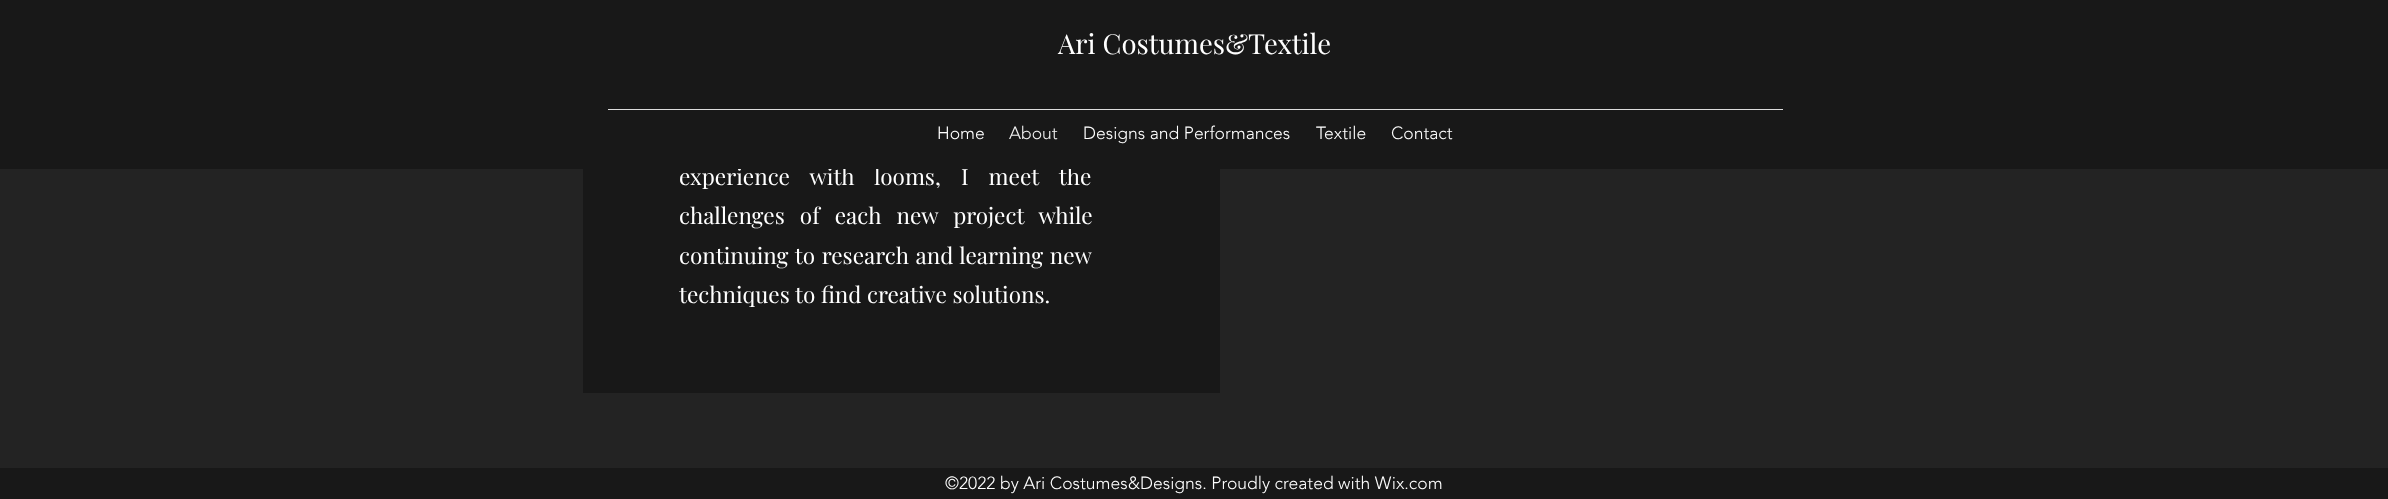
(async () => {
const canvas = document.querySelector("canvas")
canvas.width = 2388
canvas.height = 499
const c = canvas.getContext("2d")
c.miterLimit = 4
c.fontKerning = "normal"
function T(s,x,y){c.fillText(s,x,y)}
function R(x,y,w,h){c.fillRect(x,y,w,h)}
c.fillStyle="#232323"
R(0,0,2388,499)
c.fillStyle="#181818"
R(583,169,637,224)
c.wordSpacing="14.5px"
c.font="22.5px Playfair Display"
c.fillStyle="#fff"
T("experience with looms, I meet the",679,185)
c.fillStyle="#181818"
R(0,0,2388,169)
c.wordSpacing="0px"
c.font="27.5px Playfair Display"
c.fillStyle="#fff"
T("Ari Costumes&Textile",1058,54)
c.fillStyle="#dcdcdc"
R(608,109,1175,1)
c.font="300 17.5px 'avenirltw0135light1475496'"
c.fillStyle="#fff"
T("Home",937,139)
c.fillStyle="#f1f1f1"
T("About",1009,139)
c.fillStyle="#fff"
T("Designs and Performances",1083,139)
T("Textile",1316,139)
T("Contact",1391,139)
c.wordSpacing="9.5px"
c.font="22.5px Playfair Display"
T("challenges of each new project while",679,224)
c.wordSpacing="1px"
T("continuing to research and learning new",679,264)
c.wordSpacing="0px"
T("techniques to find creative solutions.",679,303)
c.fillStyle="#181818"
R(0,468,2388,31)
c.font="300 17.5px 'avenirltw0135light1475496'"
c.fillStyle="#fff"
T("©2022 by Ari Costumes&Designs. Proudly created with Wix.com",945,489)
})()
